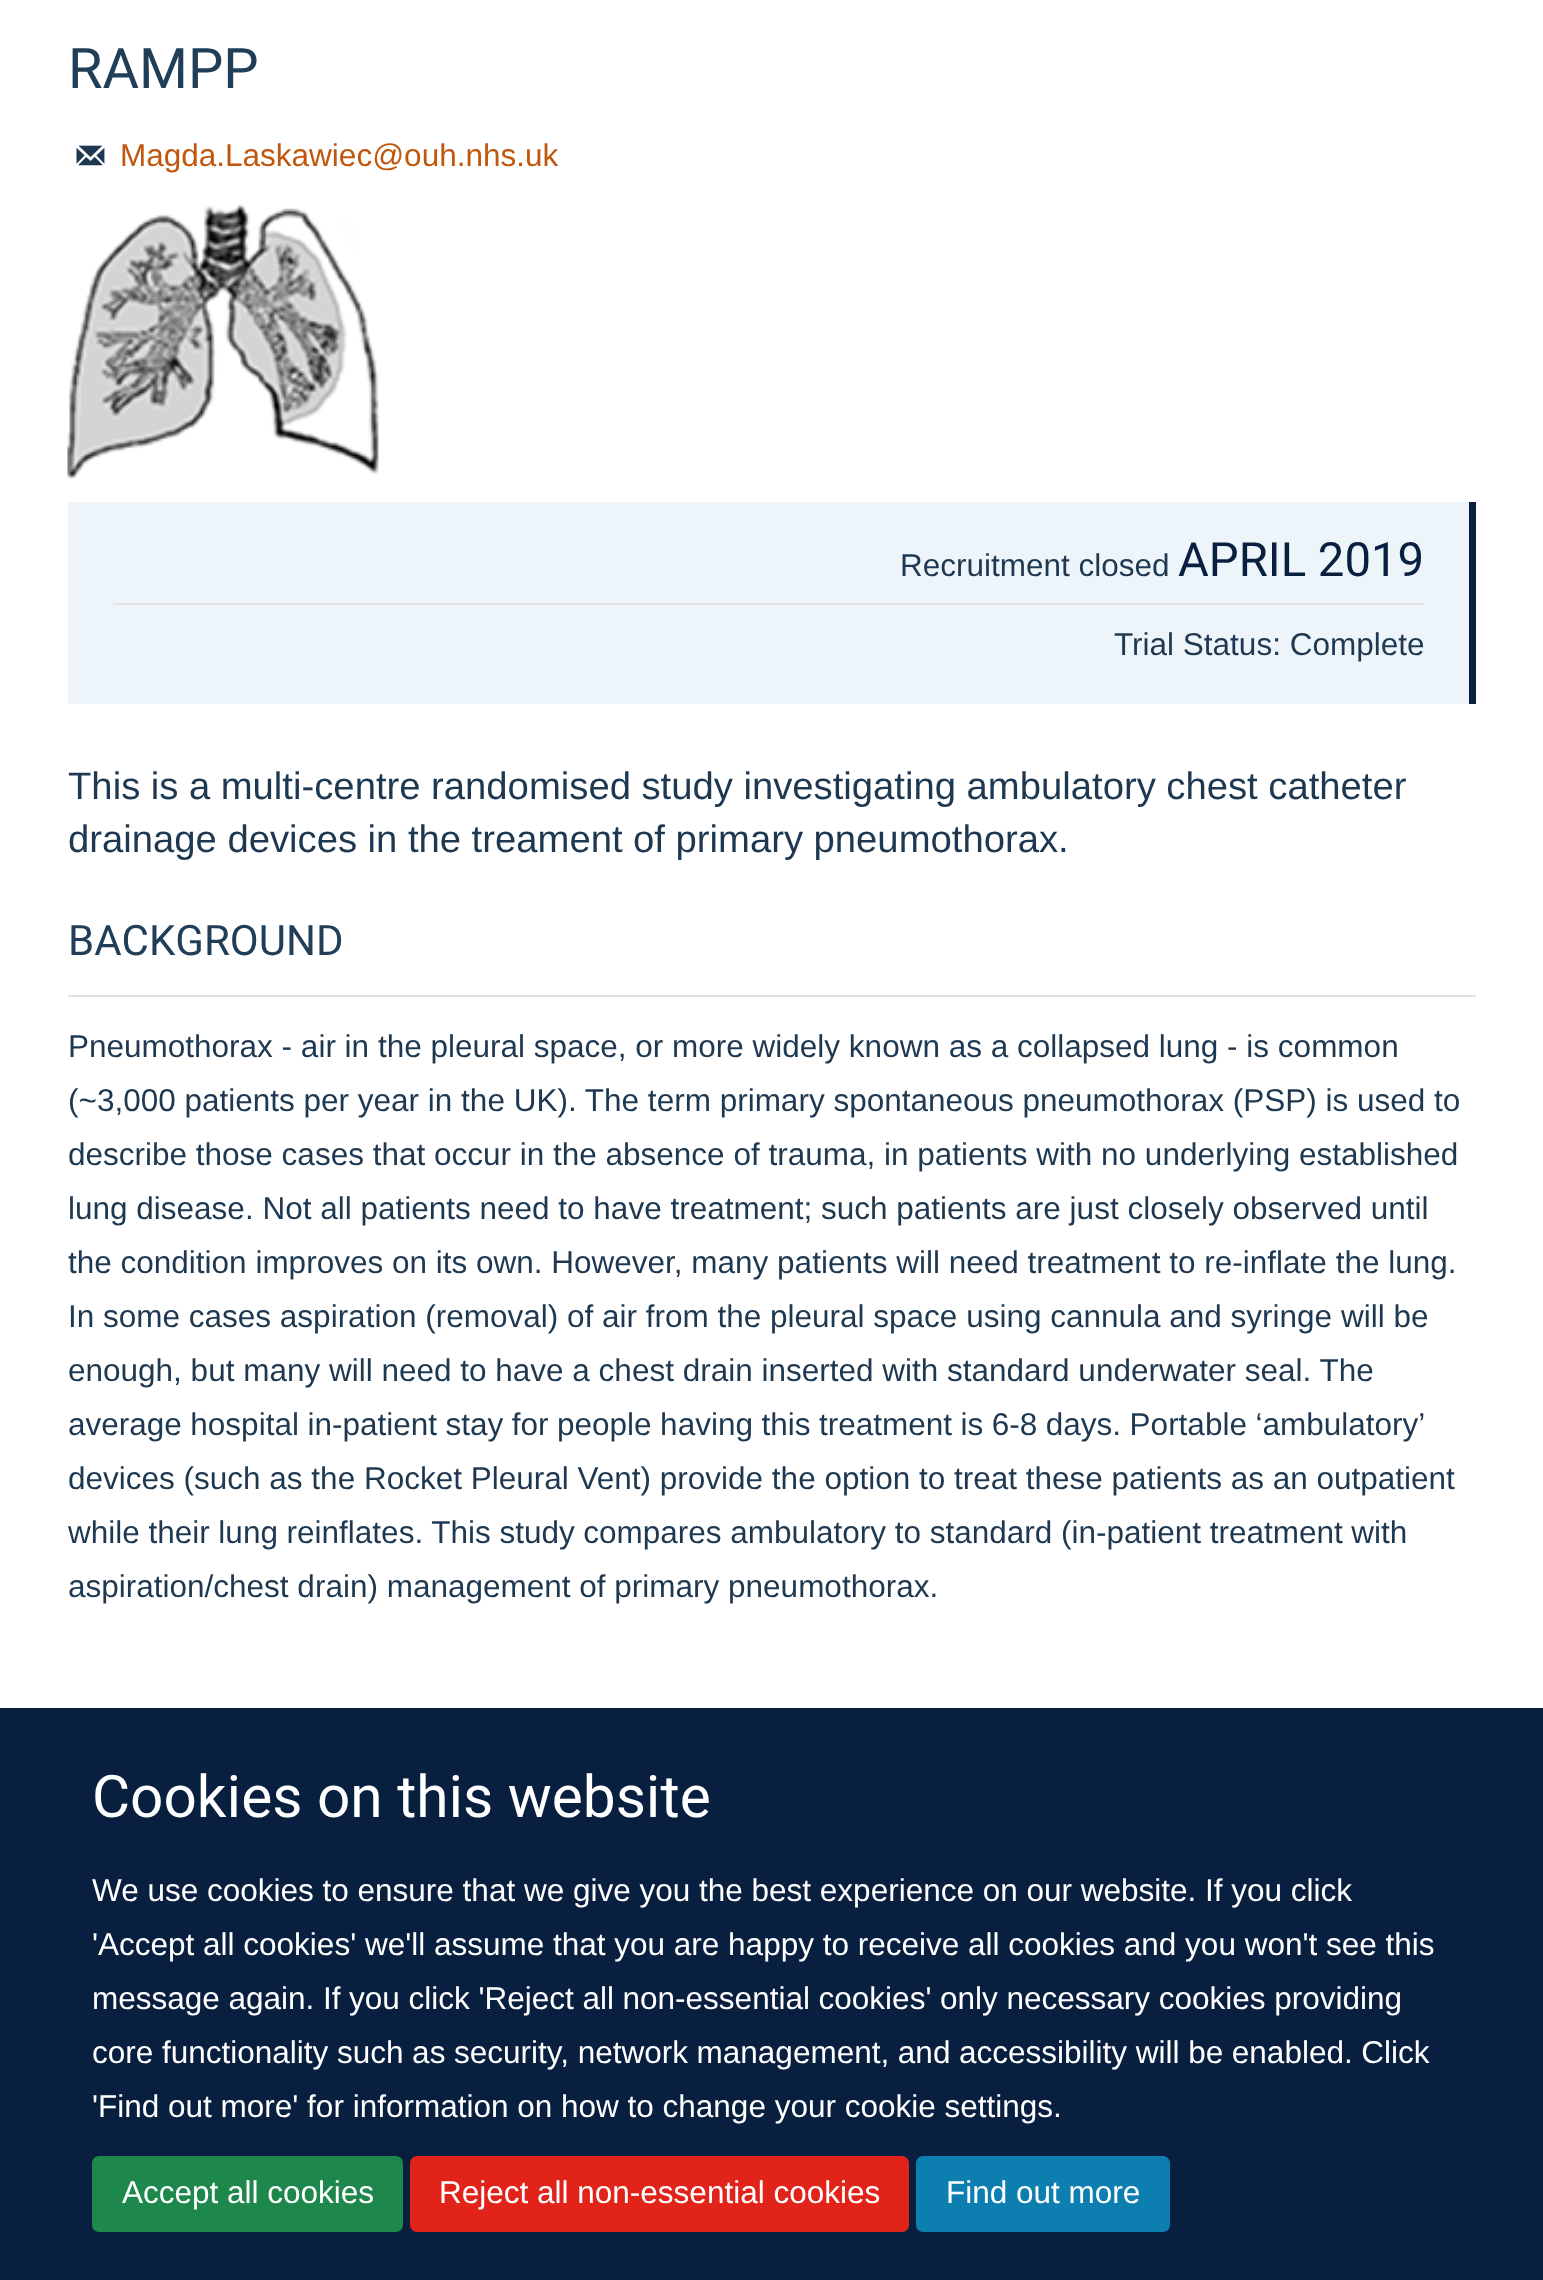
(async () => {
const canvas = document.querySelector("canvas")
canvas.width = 1543
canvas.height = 2280
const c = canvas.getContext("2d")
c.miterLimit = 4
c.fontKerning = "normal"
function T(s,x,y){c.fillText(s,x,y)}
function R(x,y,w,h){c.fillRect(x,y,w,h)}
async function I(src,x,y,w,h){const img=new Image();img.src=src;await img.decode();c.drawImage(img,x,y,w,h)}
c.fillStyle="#fff"
R(0,0,1543,2280)
c.font="56px Heebo"
c.fillStyle="#203e58"
T("RAMPP",68,88)
await I("1.png",76,145,29,21)
c.font="31.5px Liberation Sans"
c.fillStyle="#c1570e"
T("Magda.Laskawiec@ouh.nhs.uk",120,166)
await I("2.png",67,204,312,275)
c.fillStyle="#edf4fa"
R(68,502,1401,202)
c.fillStyle="#091f40"
R(1469,502,7,202)
c.fillStyle="#e2e2e2"
R(113,603,1311,2)
c.fillStyle="#1d3850"
T("Recruitment closed",900,576)
c.font="47.25px Heebo"
c.fillStyle="#091f40"
T("APRIL 2019",1178,576)
c.font="31.5px Liberation Sans"
c.fillStyle="#1d3850"
T("Trial Status: Complete",1114,655)
c.wordSpacing="-0.1px"
c.font="38.25px Liberation Sans"
T("This is a multi-centre randomised study investigating ambulatory chest catheter",68,799)
T("drainage devices in the treament of primary pneumothorax.",68,852)
c.fillStyle="#dfe1e4"
R(68,995,1408,2)
c.wordSpacing="0px"
c.font="42px Heebo"
c.fillStyle="#203e58"
T("BACKGROUND",68,955)
c.font="31.5px Liberation Sans"
c.fillStyle="#1d3850"
T("Pneumothorax - air in the pleural space, or more widely known as a collapsed lung - is common",68,1057)
T("(~3,000 patients per year in the UK). The term primary spontaneous pneumothorax (PSP) is used to",68,1111)
T("describe those cases that occur in the absence of trauma, in patients with no underlying established",68,1165)
T("lung disease. Not all patients need to have treatment; such patients are just closely observed until",68,1219)
T("the condition improves on its own. However, many patients will need treatment to re-inflate the lung.",68,1273)
T("In some cases aspiration (removal) of air from the pleural space using cannula and syringe will be",68,1327)
T("enough, but many will need to have a chest drain inserted with standard underwater seal. The",68,1381)
c.wordSpacing="-0.25px"
T("average hospital in-patient stay for people having this treatment is 6-8 days. Portable ‘ambulatory’",68,1435)
c.wordSpacing="0px"
T("devices (such as the Rocket Pleural Vent) provide the option to treat these patients as an outpatient",68,1489)
c.wordSpacing="-0.1px"
T("while their lung reinflates. This study compares ambulatory to standard (in-patient treatment with",68,1543)
c.wordSpacing="0px"
T("aspiration/chest drain) management of primary pneumothorax.",68,1597)
c.fillStyle="#091f40"
R(0,1708,1543,572)
c.font="58.5px Heebo"
c.fillStyle="#fff"
T("Cookies on this website",92,1817)
c.font="31.5px Liberation Sans"
T("We use cookies to ensure that we give you the best experience on our website. If you click",92,1901)
T("'Accept all cookies' we'll assume that you are happy to receive all cookies and you won't see this",92,1955)
c.wordSpacing="-0.1px"
T("message again. If you click 'Reject all non-essential cookies' only necessary cookies providing",92,2009)
T("core functionality such as security, network management, and accessibility will be enabled. Click",92,2063)
c.wordSpacing="0px"
T("'Find out more' for information on how to change your cookie settings.",92,2117)
c.fillStyle="#1e874b"
c.beginPath()
c.roundRect(93,2157,309,74,6)
c.fill()
c.strokeStyle="#1e874b"
c.lineWidth=2
c.stroke()
c.fillStyle="#fff"
T("Accept all cookies",122,2203)
c.fillStyle="#e2231a"
c.beginPath()
c.roundRect(411,2157,497,74,6)
c.fill()
c.strokeStyle="#e2231a"
c.stroke()
c.fillStyle="#fff"
T("Reject all non-essential cookies",439,2203)
c.fillStyle="#0d7eb0"
c.beginPath()
c.roundRect(917,2157,252,74,6)
c.fill()
c.strokeStyle="#0d7eb0"
c.stroke()
c.fillStyle="#fff"
T("Find out more",946,2203)
})()
